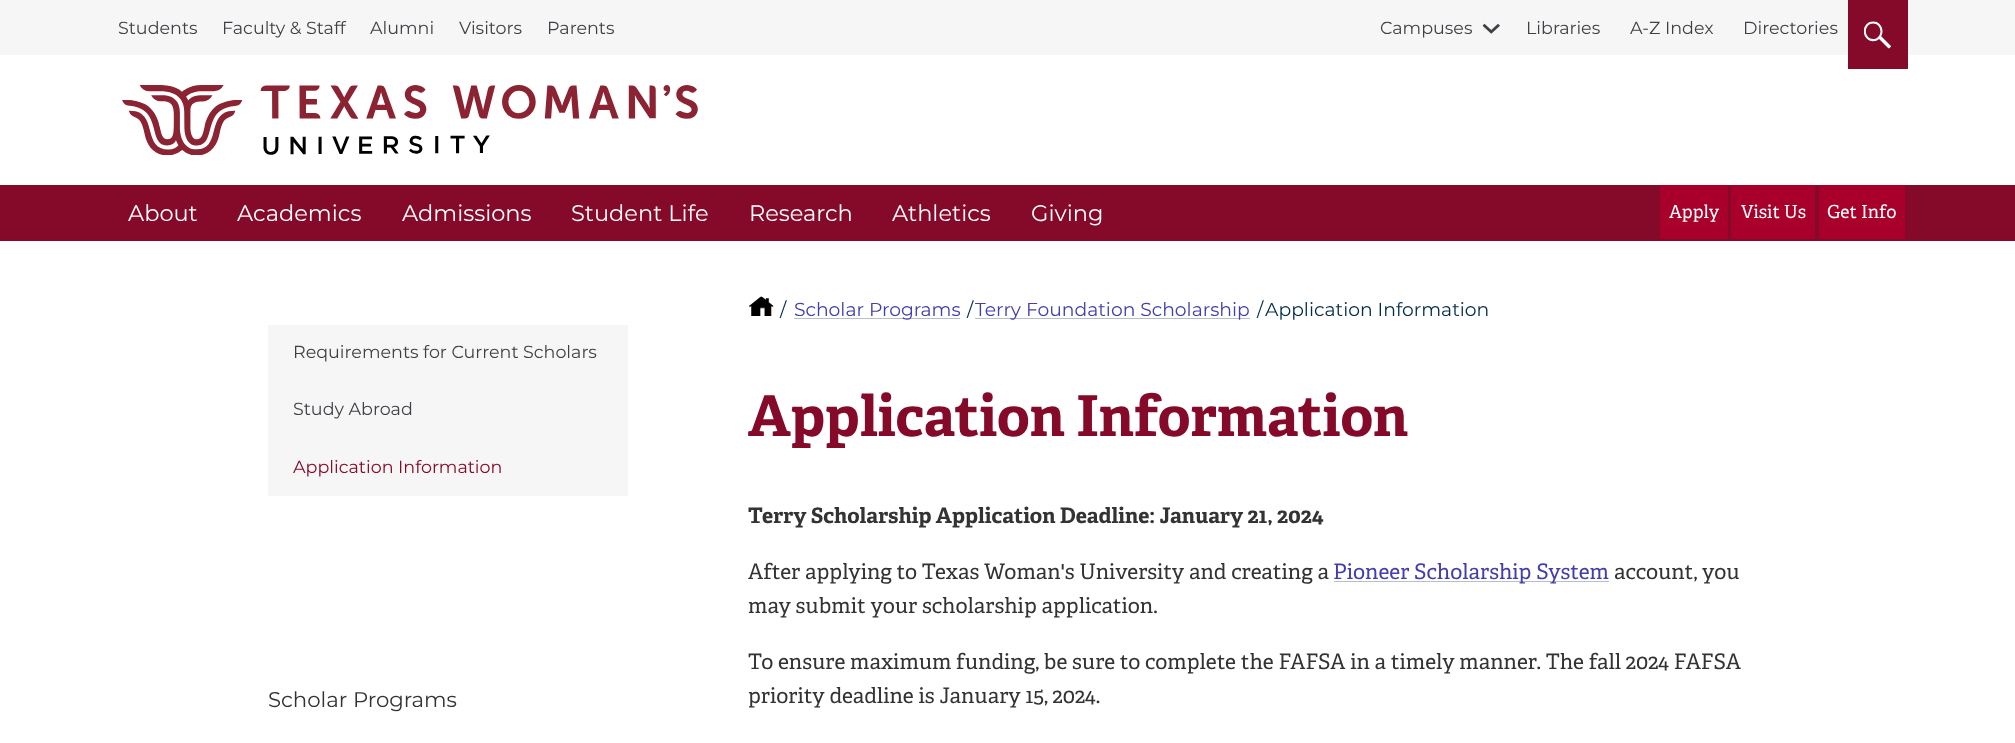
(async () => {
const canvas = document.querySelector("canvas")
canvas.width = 2015
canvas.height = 743
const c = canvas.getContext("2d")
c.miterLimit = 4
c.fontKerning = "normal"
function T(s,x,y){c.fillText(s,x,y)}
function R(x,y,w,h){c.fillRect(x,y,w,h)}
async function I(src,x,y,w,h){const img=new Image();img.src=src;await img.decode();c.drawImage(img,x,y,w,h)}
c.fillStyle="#fff"
R(0,0,2015,743)
c.fillStyle="#f6f6f6"
R(0,0,2015,55)
c.font="17.5px Montserrat"
c.fillStyle="#413f46"
T("Students",118,34)
T("Faculty & Staff",222,34)
T("Alumni",370,34)
T("Visitors",459,34)
T("Parents",547,34)
T("Campuses",1380,34)
await I("1.png",1482,23,18,11)
T("Libraries",1526,34)
T("A-Z Index",1630,34)
T("Directories",1743,34)
c.fillStyle="#850928"
R(1848,0,60,69)
await I("2.png",1864,21,27,28)
await I("3.png",122,85,576,70)
R(0,185,2015,56)
c.font="22.5px Montserrat"
c.fillStyle="#fff"
T("About",128,221)
T("Academics",237,221)
T("Admissions",402,221)
T("Student Life",571,221)
T("Research",749,221)
T("Athletics",892,221)
T("Giving",1031,221)
c.fillStyle="#a8002a"
R(1660,185,68,54)
c.font="18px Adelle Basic"
c.fillStyle="#fff"
T("Apply",1669,218)
c.fillStyle="#a8002a"
R(1731,185,84,54)
c.fillStyle="#fff"
T("Visit Us",1741,218)
c.fillStyle="#a8002a"
R(1819,185,86,54)
c.fillStyle="#fff"
T("Get Info",1827,218)
await I("4.png",749,296,25,20)
c.font="18.75px Montserrat"
c.fillStyle="#032c4c"
T("/",780,316)
c.fillStyle="#b3c0c9"
R(794,318,166,1)
c.fillStyle="#433eab"
T("Scholar Programs",794,316)
c.fillStyle="#032c4c"
T("/",967,316)
c.fillStyle="#b3c0c9"
R(975,318,275,1)
c.fillStyle="#433eab"
T("Terry Foundation Scholarship",975,316)
c.fillStyle="#032c4c"
T("/",1257,316)
T("Application Information",1265,316)
c.fillStyle="#f6f6f6"
R(268,325,360,171)
c.font="17.5px Montserrat"
c.fillStyle="#413f46"
T("Requirements for Current Scholars",293,358)
T("Study Abroad",293,415)
c.fillStyle="#850928"
T("Application Information",293,473)
c.font="bold 56.25px Adelle Basic"
T("Application Information",748,436)
c.font="bold 21.25px Adelle Basic"
c.fillStyle="#333"
T("Terry Scholarship Application Deadline: January 21, 2024",748,523)
c.font="21.25px Adelle Basic"
T("After applying to Texas Woman's University and creating a",748,579)
c.fillStyle="#b3c0c9"
R(1334,581,275,1)
c.fillStyle="#433eab"
T("Pioneer Scholarship System",1333,579)
c.fillStyle="#333"
T("account, you",1614,579)
T("may submit your scholarship application.",748,613)
T("To ensure maximum funding, be sure to complete the FAFSA in a timely manner. The fall 2024 FAFSA",748,669)
T("priority deadline is January 15, 2024.",748,703)
c.font="21.25px Montserrat"
T("Scholar Programs",268,707)
})()
